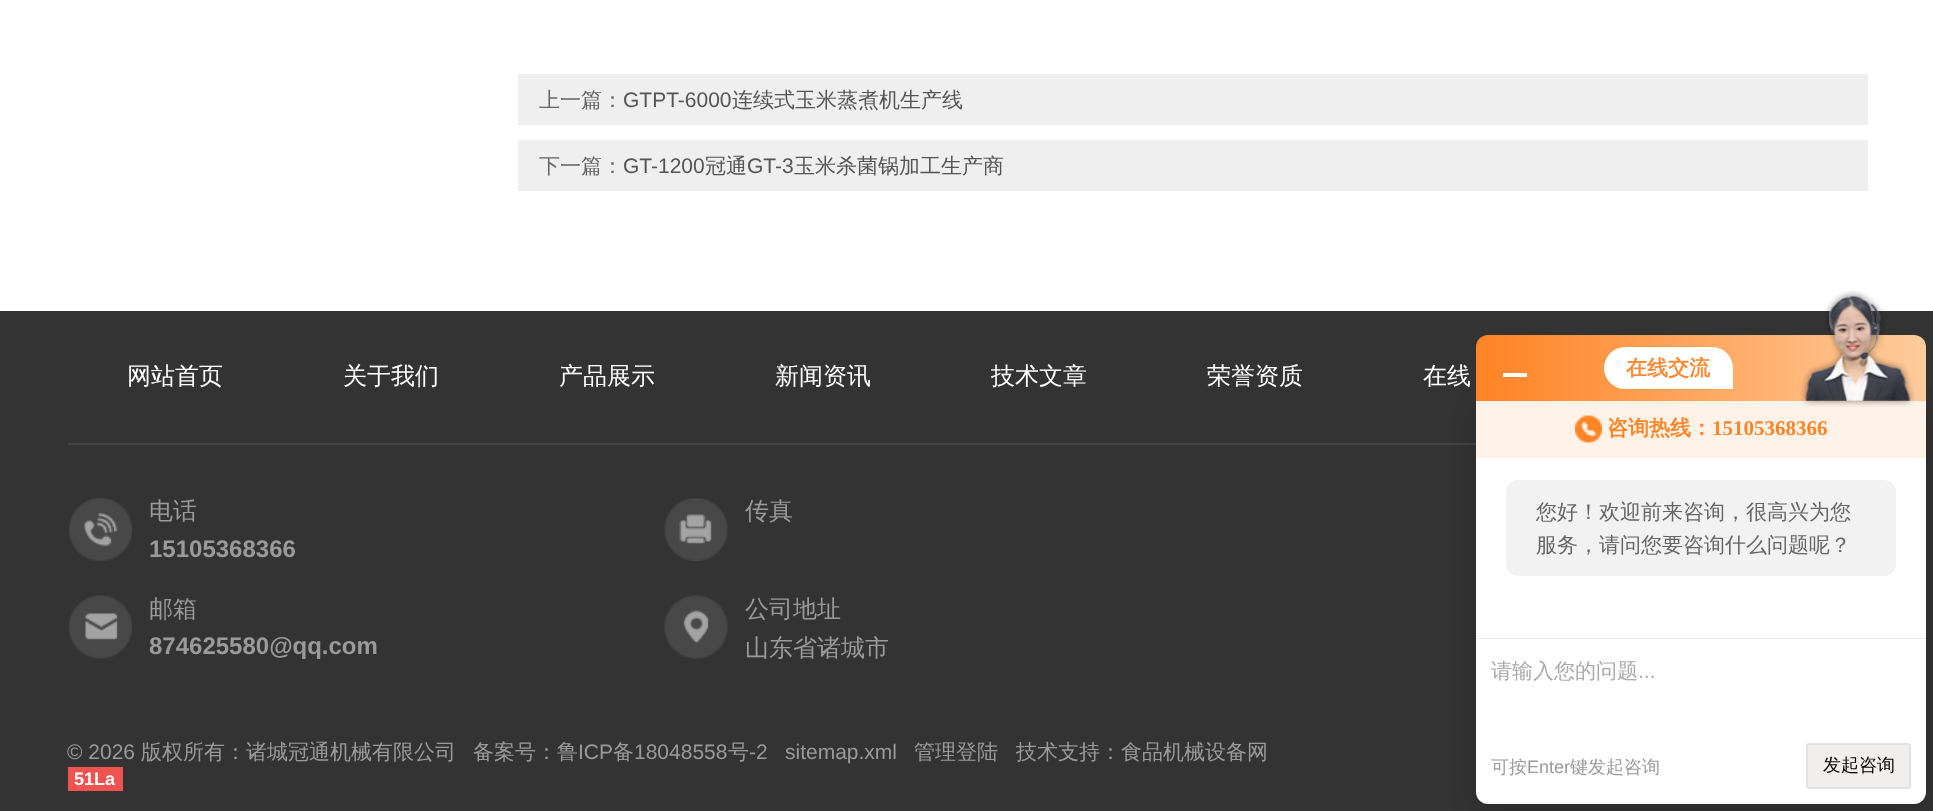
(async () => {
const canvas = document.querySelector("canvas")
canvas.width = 1933
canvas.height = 811
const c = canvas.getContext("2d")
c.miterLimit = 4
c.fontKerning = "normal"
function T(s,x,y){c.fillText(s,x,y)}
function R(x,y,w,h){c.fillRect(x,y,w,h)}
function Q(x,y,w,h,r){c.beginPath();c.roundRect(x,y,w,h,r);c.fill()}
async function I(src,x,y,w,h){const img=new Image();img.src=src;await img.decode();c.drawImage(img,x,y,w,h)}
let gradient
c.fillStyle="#fff"
R(0,0,1933,811)
c.fillStyle="#efefef"
R(518,74,1350,51)
c.font="500 21px WenQuanYi Zen Hei"
c.fillStyle="#666"
T("上一篇：",539,107)
c.font="21px Liberation Sans"
c.fillStyle="#555"
T("GTPT-6000",623,107)
c.font="500 21px WenQuanYi Zen Hei"
T("连续式玉米蒸煮机生产线",732,107)
c.fillStyle="#efefef"
R(518,140,1350,51)
c.fillStyle="#666"
T("下一篇：",539,173)
c.font="21px Liberation Sans"
c.fillStyle="#555"
T("GT-1200",623,173)
c.font="500 21px WenQuanYi Zen Hei"
T("冠通",705,173)
c.font="21px Liberation Sans"
T("GT-3",747,173)
c.font="500 21px WenQuanYi Zen Hei"
T("玉米杀菌锅加工生产商",794,173)
c.fillStyle="#333"
R(0,311,1933,500)
c.fillStyle="#434343"
R(68,443,1408,2)
c.font="500 24px WenQuanYi Zen Hei"
c.fillStyle="#fff"
T("网站首页",127,384)
T("关于我们",343,384)
T("产品展示",559,384)
T("新闻资讯",775,384)
T("技术文章",991,384)
T("荣誉资质",1207,384)
T("在线",1423,384)
await I("1.png",69,498,63,63)
c.fillStyle="#9a9a9a"
T("电话",149,519)
c.font="bold 24px Liberation Sans"
T("15105368366",149,557)
await I("2.png",664,498,64,63)
c.font="500 24px WenQuanYi Zen Hei"
T("传真",745,519)
await I("3.png",69,595,63,64)
T("邮箱",149,617)
c.font="bold 24px Liberation Sans"
T("874625580@qq.com",149,654)
await I("4.png",664,595,64,64)
c.font="500 24px WenQuanYi Zen Hei"
T("公司地址",745,617)
T("山东省诸城市",745,656)
c.font="21px Liberation Sans"
T("© 2026",67,759)
c.font="500 21px WenQuanYi Zen Hei"
T("版权所有：诸城冠通机械有限公司",141,759)
T("备案号：鲁",473,759)
c.font="21px Liberation Sans"
T("ICP",578,759)
c.font="500 21px WenQuanYi Zen Hei"
T("备",613,759)
c.font="21px Liberation Sans"
T("18048558",634,759)
c.font="500 21px WenQuanYi Zen Hei"
T("号",728,759)
c.font="21px Liberation Sans"
T("-2",749,759)
T("sitemap.xml",785,759)
c.font="500 21px WenQuanYi Zen Hei"
T("管理登陆",914,759)
T("技术支持：食品机械设备网",1016,759)
c.fillStyle="#ef5350"
R(68,767,55,24)
c.font="bold 18px Liberation Sans"
c.fillStyle="#fff"
T("51La",74,785)
c.fillStyle="#00000033"
c.filter="blur(12px)"
c.beginPath()
c.roundRect(1476,407,450,403,12)
c.fill()
c.filter="none"
gradient = c.createLinearGradient(1476,368,1926,368)
gradient.addColorStop(0,"#ff8324")
gradient.addColorStop(1,"#fecb9c")
c.fillStyle = gradient
c.beginPath()
c.roundRect(1476,335,450,66,[12,12,0,0])
c.fill()
c.fillStyle="#fff"
R(1503,373,24,4)
c.beginPath()
c.roundRect(1604,347,129,42,[21,21,0,21])
c.fill()
c.font="bold 21px WenQuanYi Zen Hei"
c.fillStyle="#fb8b36"
T("在线交流",1626,375)
c.fillStyle="#fff"
c.beginPath()
c.roundRect(1476,401,450,403,[0,0,12,12])
c.fill()
c.fillStyle="#fff3e9"
R(1476,401,450,57)
await I("5.png",1800,290,115,117)
await I("6.png",1575,415,27,28)
c.fillStyle="#ff8426"
T("咨询热线：",1607,435)
c.font="bold 21px Liberation Serif"
T("15105368366",1712,435)
c.fillStyle="#f2f2f2"
Q(1506,480,390,96,12)
c.font="500 21px WenQuanYi Zen Hei"
c.fillStyle="#666"
T("您好！欢迎前来咨询，很高兴为您",1536,519)
T("服务，请问您要咨询什么问题呢？",1536,552)
c.fillStyle="#eaeaea"
R(1476,638,450,1)
c.fillStyle="#aaa"
T("请输入您的问题",1491,678)
c.font="21px Liberation Sans"
T("...",1638,678)
c.font="500 18px WenQuanYi Zen Hei"
c.fillStyle="#9a9a9a"
T("可按",1491,773)
c.font="18px Liberation Sans"
T("Enter",1527,773)
c.font="500 18px WenQuanYi Zen Hei"
T("键发起咨询",1570,773)
c.fillStyle="#f0efed"
c.beginPath()
c.roundRect(1807,744,103,44,2)
c.fill()
c.strokeStyle="#e2e2e2"
c.lineWidth=2
c.stroke()
c.fillStyle="#000"
T("发起咨询",1823,771)
})()
